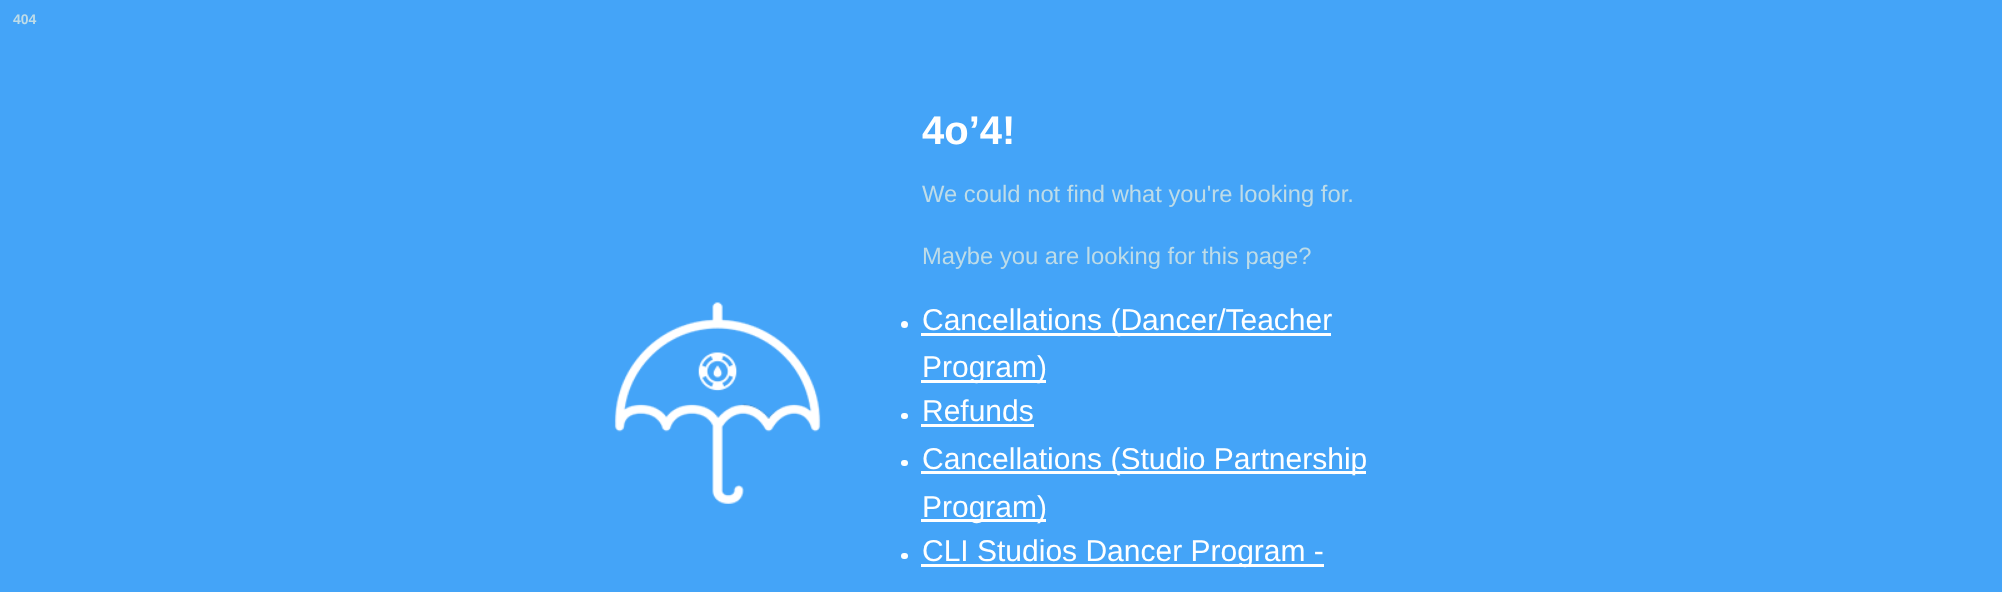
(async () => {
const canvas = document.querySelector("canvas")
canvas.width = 2002
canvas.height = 592
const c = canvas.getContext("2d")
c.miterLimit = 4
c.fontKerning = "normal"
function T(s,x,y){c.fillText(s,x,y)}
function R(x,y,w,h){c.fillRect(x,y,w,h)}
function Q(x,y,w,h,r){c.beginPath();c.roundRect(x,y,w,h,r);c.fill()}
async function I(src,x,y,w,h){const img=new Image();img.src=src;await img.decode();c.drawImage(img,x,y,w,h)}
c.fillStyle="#44a4f8"
R(0,0,2002,592)
c.font="bold 14px Liberation Sans"
c.fillStyle="#bedce8"
T("404",13,24)
await I("1.png",614,302,207,202)
c.font="bold 40px Liberation Sans"
c.fillStyle="#fff"
T("4o’4!",922,144)
c.font="23.75px Liberation Sans"
c.fillStyle="#bedce8"
T("We could not find what you're looking for.",922,202)
T("Maybe you are looking for this page?",922,264)
c.fillStyle="#fff"
c.beginPath()
c.arc(904.5,324.5,3.5,0,7)
c.fill()
R(921,333,410,3)
c.font="30px Liberation Sans"
T("Cancellations (Dancer/Teacher",922,330)
R(921,380,125,3)
T("Program)",922,377)
Q(901,413,7,6,3)
T("Refunds",922,421)
R(921,424,113,3)
Q(901,460,7,6,3)
R(921,471,445,3)
T("Cancellations (Studio Partnership",922,469)
R(921,519,125,3)
T("Program)",922,517)
Q(901,553,7,6,3)
R(921,564,403,3)
T("CLI Studios Dancer Program -",922,561)
})()
